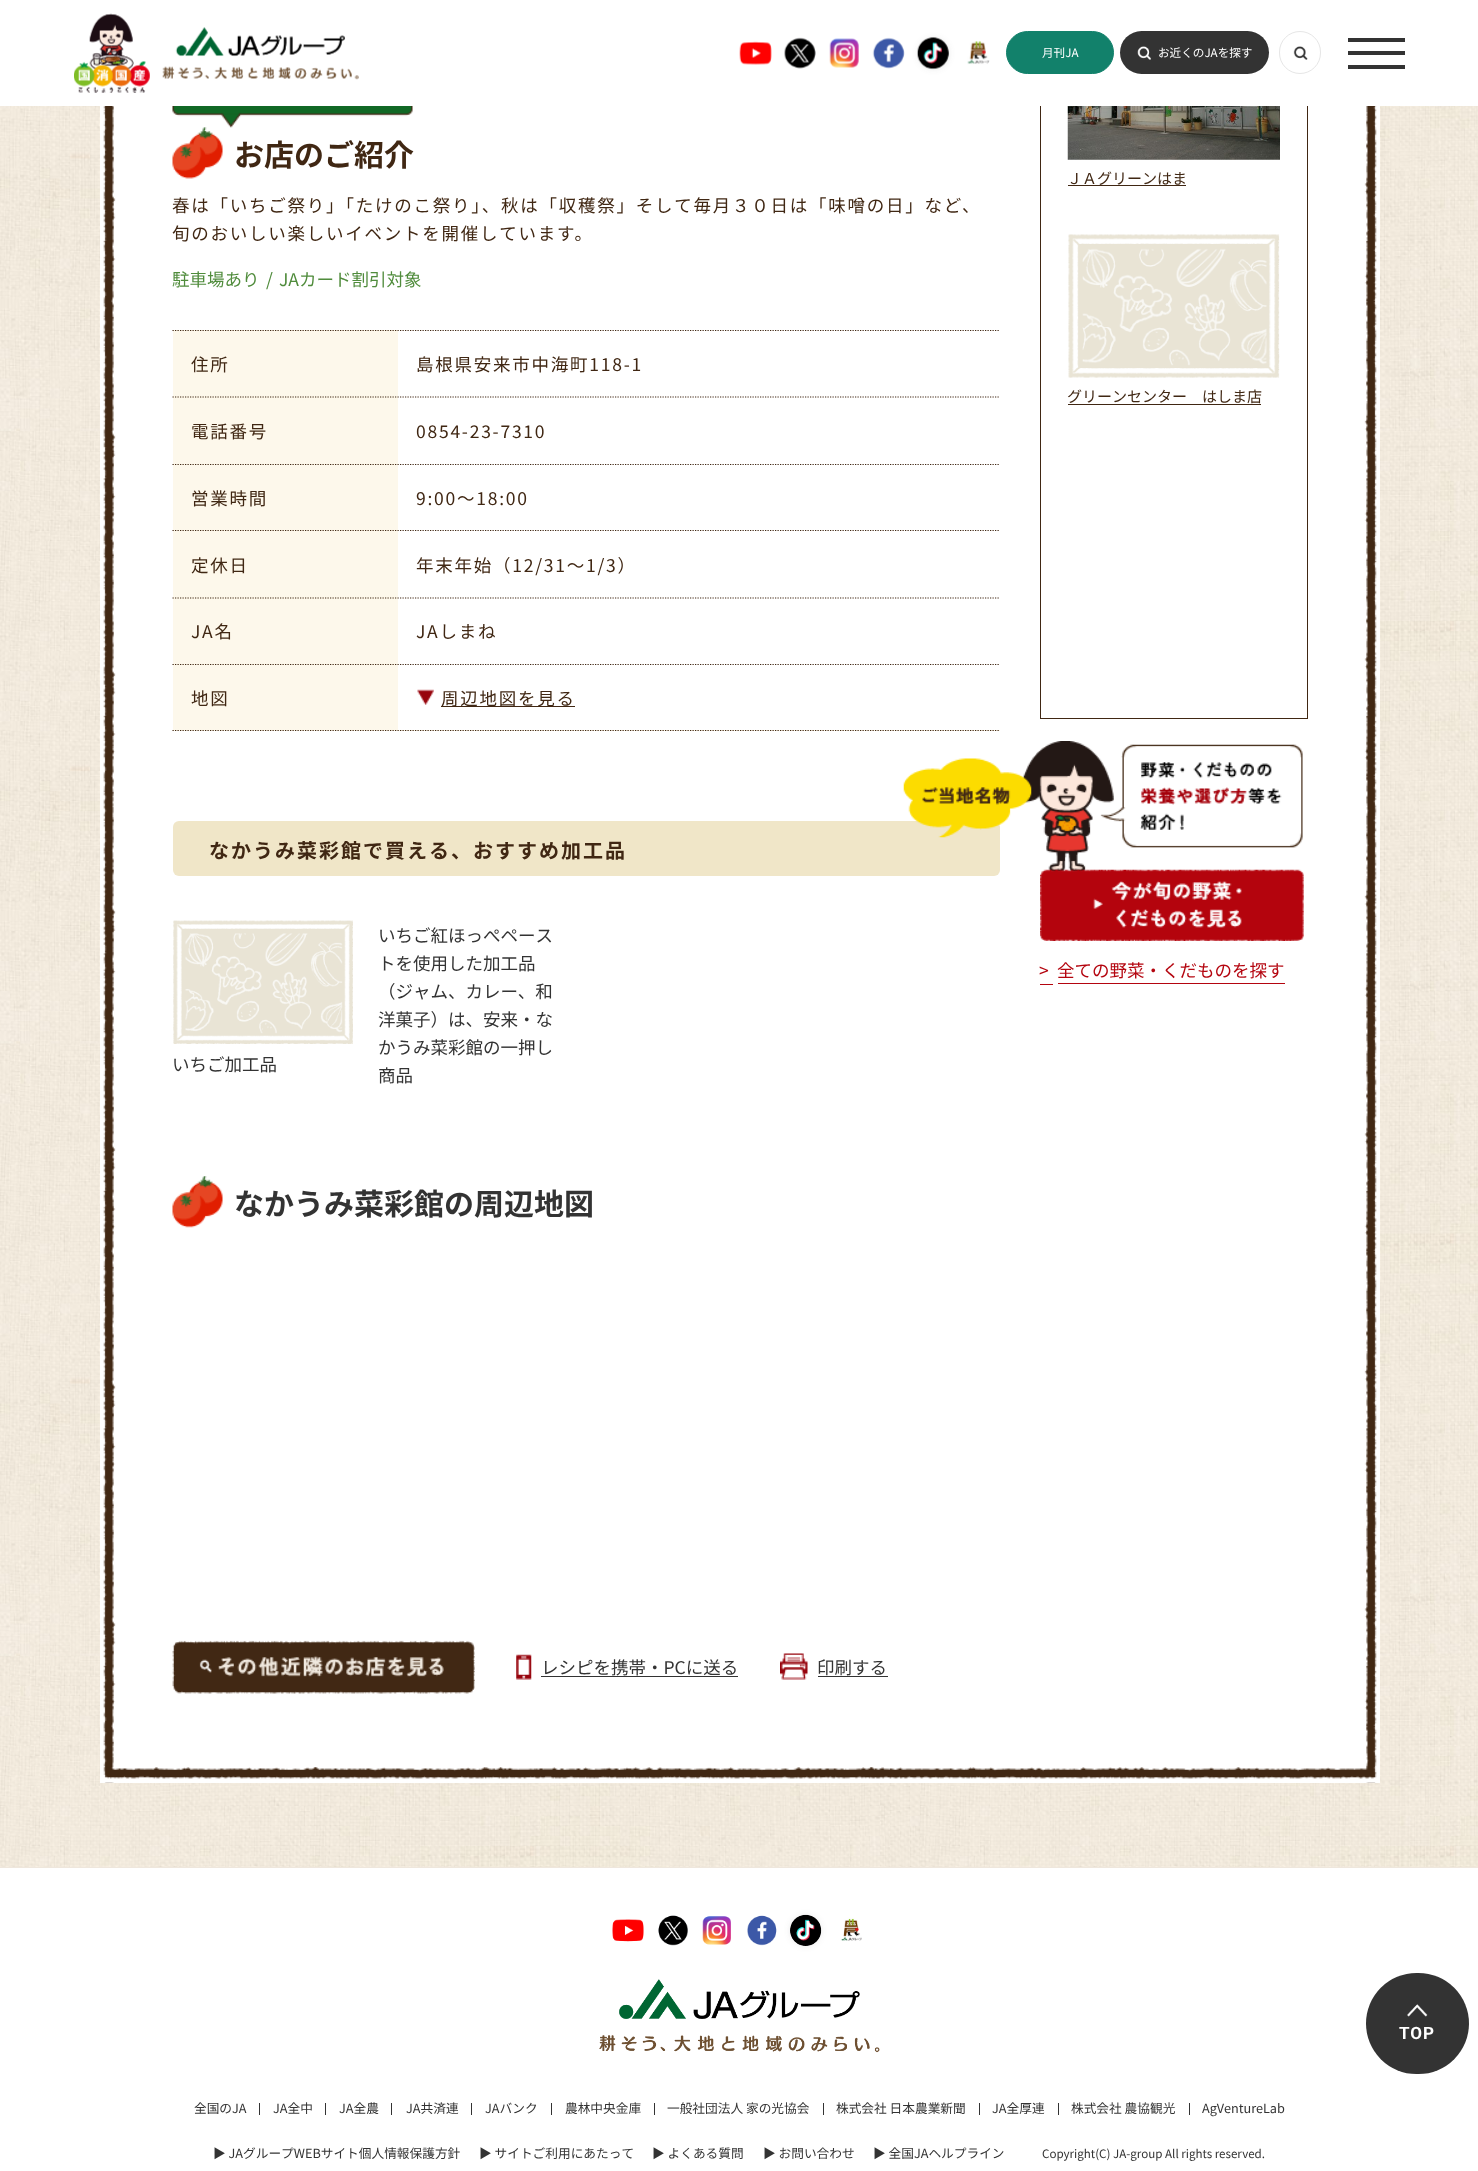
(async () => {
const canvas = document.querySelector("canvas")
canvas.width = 1478
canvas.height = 2171
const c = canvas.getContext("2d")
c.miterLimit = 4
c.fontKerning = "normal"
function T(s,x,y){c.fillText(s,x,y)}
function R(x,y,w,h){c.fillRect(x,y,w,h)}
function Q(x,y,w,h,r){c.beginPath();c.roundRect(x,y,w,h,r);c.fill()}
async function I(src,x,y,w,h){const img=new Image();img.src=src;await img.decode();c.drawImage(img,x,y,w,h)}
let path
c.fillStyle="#efe7dd"
R(0,0,1478,2171)
await I("10.png",0,106,1478,1761)
c.fillStyle="#fff"
R(100,106,1280,1677)
await I("11.png",103,106,1274,1677)
c.strokeStyle="#402713"
c.strokeRect(1040.5,-.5,267,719)
R(0,0,1478,106)
await I("1.png",74,13,285,80)
await I("2.png",739,41,33,24)
await I("3.png",784,37,32,32)
await I("4.png",829,38,30,30)
await I("5.png",872,37,33,32)
c.fillStyle="#3333331a"
c.filter="blur(3px)"
c.beginPath()
c.roundRect(918,38,31,31,15.5)
c.fill()
c.filter="none"
await I("6.png",917,37,32,33)
await I("7.png",967,41,27,27)
c.fillStyle="#12816b"
c.beginPath()
c.roundRect(1006.5,31.5,107,42,21)
c.fill()
c.strokeStyle="#12816b"
c.stroke()
c.font="11.6px Noto Sans JP"
c.fillStyle="#fff"
T("月刊JA",1042,57)
c.fillStyle="#333"
Q(1120,31,149,43,21.5)
await I("8.png",1137,46,14,14)
c.fillStyle="#fff"
T("お近くのJAを探す",1158,57)
c.beginPath()
c.roundRect(1279.5,31.5,41,42,20.5)
c.strokeStyle="#e6e6e6"
c.stroke()
await I("9.png",1293,46,15,14)
c.fillStyle="#333"
R(1348,38,57,4)
R(1348,51,57,4)
R(1348,65,57,4)
await I("12.png",103,1767,1274,16)
await I("13.png",172,106,241,22)
await I("14.png",172,127,51,52)
c.font="bold 30px Noto Sans JP"
c.fillStyle="#402713"
T("お店のご紹介",234,166)
c.letterSpacing="1.75px"
c.font="17.5px Noto Sans JP"
T("春は「いちご祭り」「たけのこ祭り」、秋は「収穫祭」そして毎月３０日は「味噌の日」など、",172,212)
T("旬のおいしい楽しいイベントを開催しています。",172,240)
c.letterSpacing="0px"
c.fillStyle="#508c3c"
T("駐車場あり",172,286)
T("/",266,286)
T("JAカード割引対象",279,286)
c.fillStyle="#fdf8eb"
R(173,330,827,401)
path = new Path2D("M172.5 730.5h827.5")
c.strokeStyle="#402713"
c.lineWidth=1.2
c.setLineDash([1.25,1.25])
c.stroke(path)
path = new Path2D("M172.5 330.5h225")
c.stroke(path)
c.letterSpacing="1.75px"
c.fillStyle="#402713"
T("住所",191,371)
c.fillStyle="#fff"
R(398,330,602,400)
path = new Path2D("M397.5 330.5h602.5")
c.stroke(path)
c.fillStyle="#402713"
T("島根県安来市中海町118-1",416,371)
path = new Path2D("M172.5 397h225")
c.stroke(path)
T("電話番号",191,438)
path = new Path2D("M397.5 397h602.5")
c.stroke(path)
T("0854-23-7310",416,438)
path = new Path2D("M172.5 464.5h225")
c.stroke(path)
T("営業時間",191,505)
path = new Path2D("M397.5 464.5h602.5")
c.stroke(path)
T("9:00～18:00",416,505)
path = new Path2D("M172.5 530.5h225")
c.stroke(path)
T("定休日",191,572)
path = new Path2D("M397.5 530.5h602.5")
c.stroke(path)
T("年末年始（12/31～1/3）",416,572)
path = new Path2D("M172.5 598h225")
c.stroke(path)
T("JA名",191,638)
path = new Path2D("M397.5 598h602.5")
c.stroke(path)
T("JAしまね",416,638)
path = new Path2D("M172.5 664.5h225")
c.stroke(path)
T("地図",191,705)
path = new Path2D("M397.5 664.5h602.5")
c.stroke(path)
await I("15.png",417,689,17,16)
R(441,706,134,1)
T("周辺地図を見る",441,705)
c.fillStyle="#f0e6c8"
Q(173,821,827,55,6)
await I("24.png",1022,741,281,131)
await I("16.png",903,758,129,80)
c.letterSpacing="2px"
c.font="bold 20px Noto Sans JP"
c.fillStyle="#402713"
T("なかうみ菜彩館で買える、おすすめ加工品",209,858)
await I("17.png",173,920,180,124)
c.letterSpacing="0px"
c.font="17.5px Noto Sans JP"
c.fillStyle="#333"
T("いちご加工品",172,1071)
T("いちご紅ほっぺペース",378,942)
T("トを使用した加工品",378,970)
T("（ジャム、カレー、和",378,998)
T("洋菓子）は、安来・な",378,1026)
T("かうみ菜彩館の一押し",378,1054)
T("商品",378,1082)
await I("18.png",172,1176,51,52)
c.font="bold 30px Noto Sans JP"
T("なかうみ菜彩館の周辺地図",234,1215)
await I("19.png",172,1640,303,54)
await I("20.png",516,1654,16,26)
c.font="17.5px Noto Sans JP"
T("レシピを携帯・PCに送る",541,1674)
R(541,1676,197,1)
await I("21.png",780,1653,28,27)
T("印刷する",817,1674)
R(818,1676,70,1)
await I("22.png",1067,106,213,54)
c.font="15px Noto Sans JP"
c.fillStyle="#402713"
T("ＪＡグリーンはま",1067,184)
R(1068,185,118,1)
await I("23.png",1068,234,212,144)
T("グリーンセンター　はしま店",1067,402)
R(1068,404,193,1)
await I("25.png",1040,869,264,72)
c.fillStyle="#b4050f"
R(1040,984,13,1)
R(1058,983,227,1)
c.font="17.5px Noto Sans JP"
T(">",1039,977)
T("全ての野菜・くだものを探す",1057,977)
c.fillStyle="#fff"
R(0,1868,1478,303)
c.fillStyle="#333"
Q(1366,1973,103,101,50.5)
await I("26.png",1407,2004,21,13)
c.letterSpacing="1px"
c.font="bold 17px Roboto"
c.fillStyle="#fff"
T("TOP",1399,2039)
await I("27.png",612,1919,32,23)
await I("28.png",658,1915,30,31)
await I("29.png",702,1916,29,29)
await I("30.png",747,1915,30,31)
c.fillStyle="#3333331a"
c.filter="blur(3px)"
c.beginPath()
c.roundRect(790,1915,31,31,15.5)
c.fill()
c.filter="none"
await I("31.png",790,1914,32,32)
await I("32.png",839,1917,23,24)
await I("33.png",599,1979,281,74)
c.letterSpacing="0px"
c.font="12.7px Noto Sans JP"
c.fillStyle="#333"
T("全国のJA",194,2113)
R(259,2103,1,12)
T("JA全中",273,2113)
R(325,2103,1,12)
T("JA全農",339,2113)
R(391,2103,1,12)
T("JA共済連",406,2113)
R(471,2103,1,12)
T("JAバンク",485,2113)
R(551,2103,1,12)
T("農林中央金庫",565,2113)
R(654,2103,1,12)
T("一般社団法人 家の光協会",667,2113)
R(823,2103,1,12)
T("株式会社 日本農業新聞",836,2113)
R(979,2103,1,12)
T("JA全厚連",992,2113)
R(1058,2103,1,12)
T("株式会社 農協観光",1071,2113)
R(1189,2103,1,12)
T("AgVentureLab",1202,2113)
T("▶︎ JAグループWEBサイト個人情報保護方針",213,2158)
T("▶︎ サイトご利用にあたって",479,2158)
T("▶︎ よくある質問",652,2158)
T("▶︎ お問い合わせ",763,2158)
T("▶︎ 全国JAヘルプライン",873,2158)
c.font="11.6px Noto Sans JP"
T("Copyright(C) JA-group All rights reserved.",1042,2158)
})()
